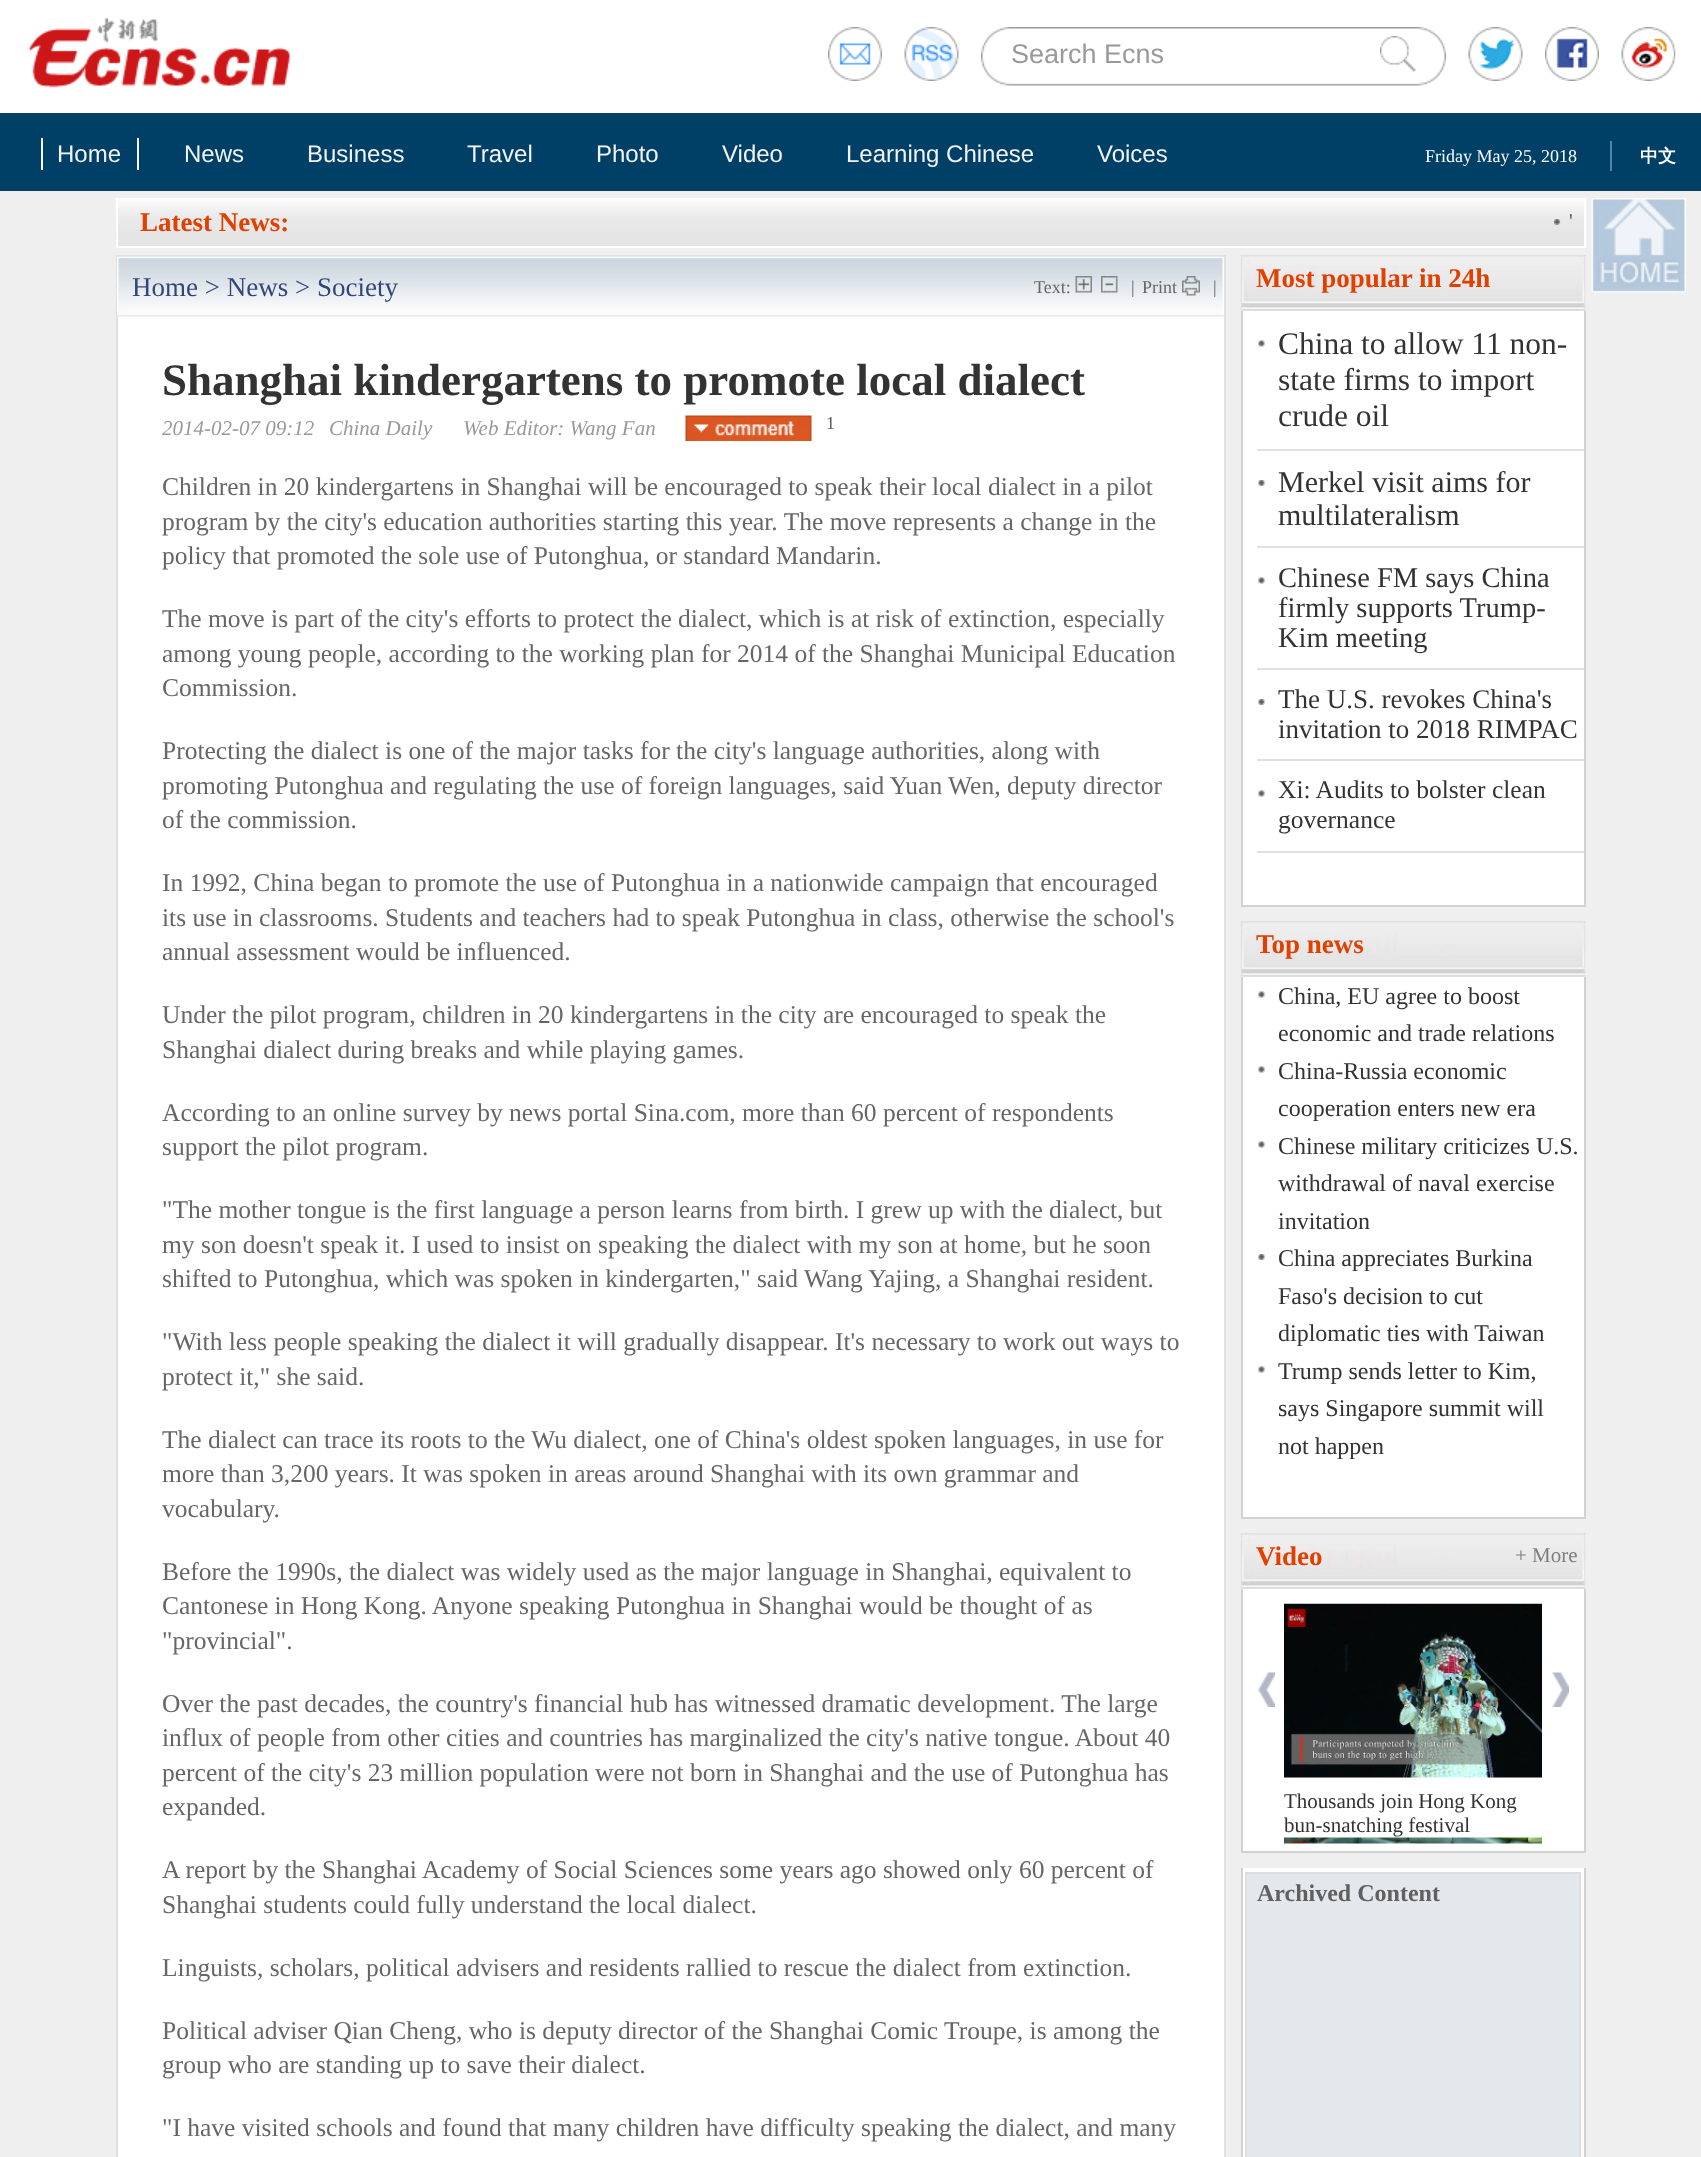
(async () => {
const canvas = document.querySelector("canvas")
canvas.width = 1701
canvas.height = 2157
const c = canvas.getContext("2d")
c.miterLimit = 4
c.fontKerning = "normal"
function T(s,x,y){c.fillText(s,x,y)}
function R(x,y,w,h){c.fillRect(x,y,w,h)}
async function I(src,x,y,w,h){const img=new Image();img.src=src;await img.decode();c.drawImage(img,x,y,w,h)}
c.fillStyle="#efefef"
R(0,0,1701,2157)
c.fillStyle="#fff"
R(0,0,1701,113)
await I("1.png",28,17,262,71)
await I("2.png",828,27,54,54)
await I("3.png",904,27,55,54)
await I("4.png",981,27,465,59)
c.font="27px Liberation Sans"
c.fillStyle="#999"
T("Search Ecns",1011,63)
await I("5.png",1380,36,36,36)
await I("6.png",1468,27,55,54)
await I("7.png",1545,27,54,54)
await I("8.png",1621,27,55,54)
c.fillStyle="#003f66"
R(0,113,1701,78)
c.fillStyle="#fff"
R(137,138,2,32)
R(41,138,2,32)
c.font="24px Liberation Sans"
c.fillStyle="#f2f2f2"
T("Home",57,162)
T("News",184,162)
T("Business",307,162)
T("Travel",467,162)
T("Photo",596,162)
T("Video",722,162)
T("Learning Chinese",846,162)
T("Voices",1097,162)
c.font="18px Liberation Serif"
c.fillStyle="#fff"
T("Friday May 25, 2018",1425,162)
c.fillStyle="#4a86a7"
R(1610,141,2,30)
c.font="bold 18px WenQuanYi Zen Hei"
c.fillStyle="#fff"
T("中文",1640,162)
await I("9.png",115,198,1469,48)
R(1584,198,2,50)
R(116,246,1470,2)
R(116,198,2,50)
c.font="bold 27px Liberation Serif"
c.fillStyle="#e14000"
T("Latest News:",140,231)
await I("10.png",1554,219,7,6)
c.font="21px Liberation Serif"
c.fillStyle="#606060"
T("'",1569,228)
await I("11.png",1591,198,95,95)
c.fillStyle="#fff"
R(118,316,1106,1841)
c.strokeStyle="#e0e0e0"
c.lineWidth=2
c.strokeRect(117,256,1108,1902)
await I("12.png",117,256,1107,61)
c.font="27px Liberation Serif"
c.fillStyle="#344678"
T("Home > News > Society",132,296)
c.font="18px Liberation Serif"
c.fillStyle="#666"
T("Text:",1034,293)
await I("13.png",1075,276,17,17)
await I("14.png",1101,276,17,17)
c.font="italic 18px Liberation Serif"
T("|",1130,293)
c.font="18px Liberation Serif"
T("Print",1142,293)
await I("15.png",1182,276,18,20)
c.font="italic 18px Liberation Serif"
T("|",1212,293)
c.font="bold 45px Liberation Serif"
c.fillStyle="#333"
T("Shanghai kindergartens to promote local dialect",162,395)
c.font="italic 21px Liberation Serif"
c.fillStyle="#999"
T("2014-02-07 09:12",162,435)
T("China Daily",329,435)
T("Web Editor: Wang Fan",463,435)
await I("16.png",685,415,127,26)
c.font="18px Liberation Serif"
c.fillStyle="#606060"
T("1",826,429)
c.font="25.5px Liberation Serif"
c.fillStyle="#666"
T("Children in 20 kindergartens in Shanghai will be encouraged to speak their local dialect in a pilot",162,495)
T("program by the city's education authorities starting this year. The move represents a change in the",162,530)
T("policy that promoted the sole use of Putonghua, or standard Mandarin.",162,564)
T("The move is part of the city's efforts to protect the dialect, which is at risk of extinction, especially",162,627)
T("among young people, according to the working plan for 2014 of the Shanghai Municipal Education",162,662)
T("Commission.",162,696)
T("Protecting the dialect is one of the major tasks for the city's language authorities, along with",162,759)
T("promoting Putonghua and regulating the use of foreign languages, said Yuan Wen, deputy director",162,794)
T("of the commission.",162,828)
T("In 1992, China began to promote the use of Putonghua in a nationwide campaign that encouraged",162,891)
T("its use in classrooms. Students and teachers had to speak Putonghua in class, otherwise the school's",162,926)
T("annual assessment would be influenced.",162,960)
T("Under the pilot program, children in 20 kindergartens in the city are encouraged to speak the",162,1023)
T("Shanghai dialect during breaks and while playing games.",162,1058)
T("According to an online survey by news portal Sina.com, more than 60 percent of respondents",162,1121)
T("support the pilot program.",162,1155)
T("\"The mother tongue is the first language a person learns from birth. I grew up with the dialect, but",162,1218)
T("my son doesn't speak it. I used to insist on speaking the dialect with my son at home, but he soon",162,1253)
T("shifted to Putonghua, which was spoken in kindergarten,\" said Wang Yajing, a Shanghai resident.",162,1287)
T("\"With less people speaking the dialect it will gradually disappear. It's necessary to work out ways to",162,1350)
T("protect it,\" she said.",162,1385)
T("The dialect can trace its roots to the Wu dialect, one of China's oldest spoken languages, in use for",162,1448)
T("more than 3,200 years. It was spoken in areas around Shanghai with its own grammar and",162,1482)
T("vocabulary.",162,1517)
T("Before the 1990s, the dialect was widely used as the major language in Shanghai, equivalent to",162,1580)
T("Cantonese in Hong Kong. Anyone speaking Putonghua in Shanghai would be thought of as",162,1614)
T("\"provincial\".",162,1649)
T("Over the past decades, the country's financial hub has witnessed dramatic development. The large",162,1712)
T("influx of people from other cities and countries has marginalized the city's native tongue. About 40",162,1746)
T("percent of the city's 23 million population were not born in Shanghai and the use of Putonghua has",162,1781)
T("expanded.",162,1815)
T("A report by the Shanghai Academy of Social Sciences some years ago showed only 60 percent of",162,1878)
T("Shanghai students could fully understand the local dialect.",162,1913)
T("Linguists, scholars, political advisers and residents rallied to rescue the dialect from extinction.",162,1976)
T("Political adviser Qian Cheng, who is deputy director of the Shanghai Comic Troupe, is among the",162,2039)
T("group who are standing up to save their dialect.",162,2073)
T("\"I have visited schools and found that many children have difficulty speaking the dialect, and many",162,2136)
await I("17.png",1240,255,346,56)
c.font="bold 27px Liberation Serif"
c.fillStyle="#e14000"
T("Most popular in 24h",1256,287)
c.fillStyle="#fff"
R(1243,311,341,594)
c.fillStyle="#d2d2d2"
R(1584,311,2,595)
R(1241,905,345,2)
R(1241,311,2,595)
c.fillStyle="#e0e0e0"
R(1257,449,327,2)
await I("18.png",1258,340,7,7)
c.font="31.5px Liberation Serif"
c.fillStyle="#333"
T("China to allow 11 non-",1278,354)
T("state firms to import",1278,390)
T("crude oil",1278,426)
c.fillStyle="#e0e0e0"
R(1257,546,327,2)
await I("19.png",1258,480,7,6)
c.font="30px Liberation Serif"
c.fillStyle="#333"
T("Merkel visit aims for",1278,492)
T("multilateralism",1278,525)
c.fillStyle="#e0e0e0"
R(1257,668,327,2)
await I("18.png",1258,577,7,7)
c.font="28.5px Liberation Serif"
c.fillStyle="#333"
T("Chinese FM says China",1278,587)
T("firmly supports Trump-",1278,617)
T("Kim meeting",1278,647)
c.fillStyle="#e0e0e0"
R(1257,759,327,2)
await I("19.png",1258,699,7,6)
c.font="27px Liberation Serif"
c.fillStyle="#333"
T("The U.S. revokes China's",1278,708)
T("invitation to 2018 RIMPAC",1278,738)
c.fillStyle="#e0e0e0"
R(1257,851,327,2)
await I("18.png",1258,790,7,7)
c.font="25.5px Liberation Serif"
c.fillStyle="#333"
T("Xi: Audits to bolster clean",1278,798)
T("governance",1278,828)
await I("17.png",1240,921,346,56)
c.font="bold 27px Liberation Serif"
c.fillStyle="#e14000"
T("Top news",1256,953)
c.fillStyle="#fff"
R(1243,977,341,540)
c.fillStyle="#d2d2d2"
R(1584,977,2,541)
R(1241,1517,345,2)
R(1241,977,2,541)
await I("18.png",1258,991,7,7)
c.font="24px Liberation Serif"
c.fillStyle="#333"
T("China, EU agree to boost",1278,1004)
T("economic and trade relations",1278,1041)
await I("18.png",1258,1066,7,7)
T("China-Russia economic",1278,1079)
T("cooperation enters new era",1278,1116)
await I("18.png",1258,1141,7,7)
T("Chinese military criticizes U.S.",1278,1154)
T("withdrawal of naval exercise",1278,1191)
T("invitation",1278,1229)
await I("19.png",1258,1254,7,6)
T("China appreciates Burkina",1278,1266)
T("Faso's decision to cut",1278,1304)
T("diplomatic ties with Taiwan",1278,1341)
await I("18.png",1258,1366,7,7)
T("Trump sends letter to Kim,",1278,1379)
T("says Singapore summit will",1278,1416)
T("not happen",1278,1454)
await I("17.png",1240,1533,346,56)
c.font="bold 27px Liberation Serif"
c.fillStyle="#e14000"
T("Video",1256,1565)
c.font="21px Liberation Serif"
c.fillStyle="#7e7e7e"
T("+ More",1515,1562)
c.fillStyle="#fff"
R(1243,1589,341,262)
c.fillStyle="#d2d2d2"
R(1584,1589,2,264)
R(1241,1851,345,2)
R(1241,1589,2,264)
await I("20.png",1258,1672,17,35)
await I("21.png",1552,1672,17,35)
await I("22.png",1284,1603,258,175)
c.fillStyle="#333"
T("Thousands join Hong Kong",1284,1808)
T("bun-snatching festival",1284,1832)
await I("23.png",1284,1837,258,7)
c.fillStyle="#fff"
R(1243,1868,341,289)
c.fillStyle="#d2d2d2"
R(1584,1868,2,289)
R(1241,1868,2,289)
c.fillStyle="#e3e8ec"
c.beginPath()
c.rect(1246,1873,334,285)
c.fill()
c.strokeStyle="#ddd"
c.stroke()
c.font="bold 24px Liberation Serif"
c.fillStyle="#606060"
T("Archived Content",1257,1901)
})()
